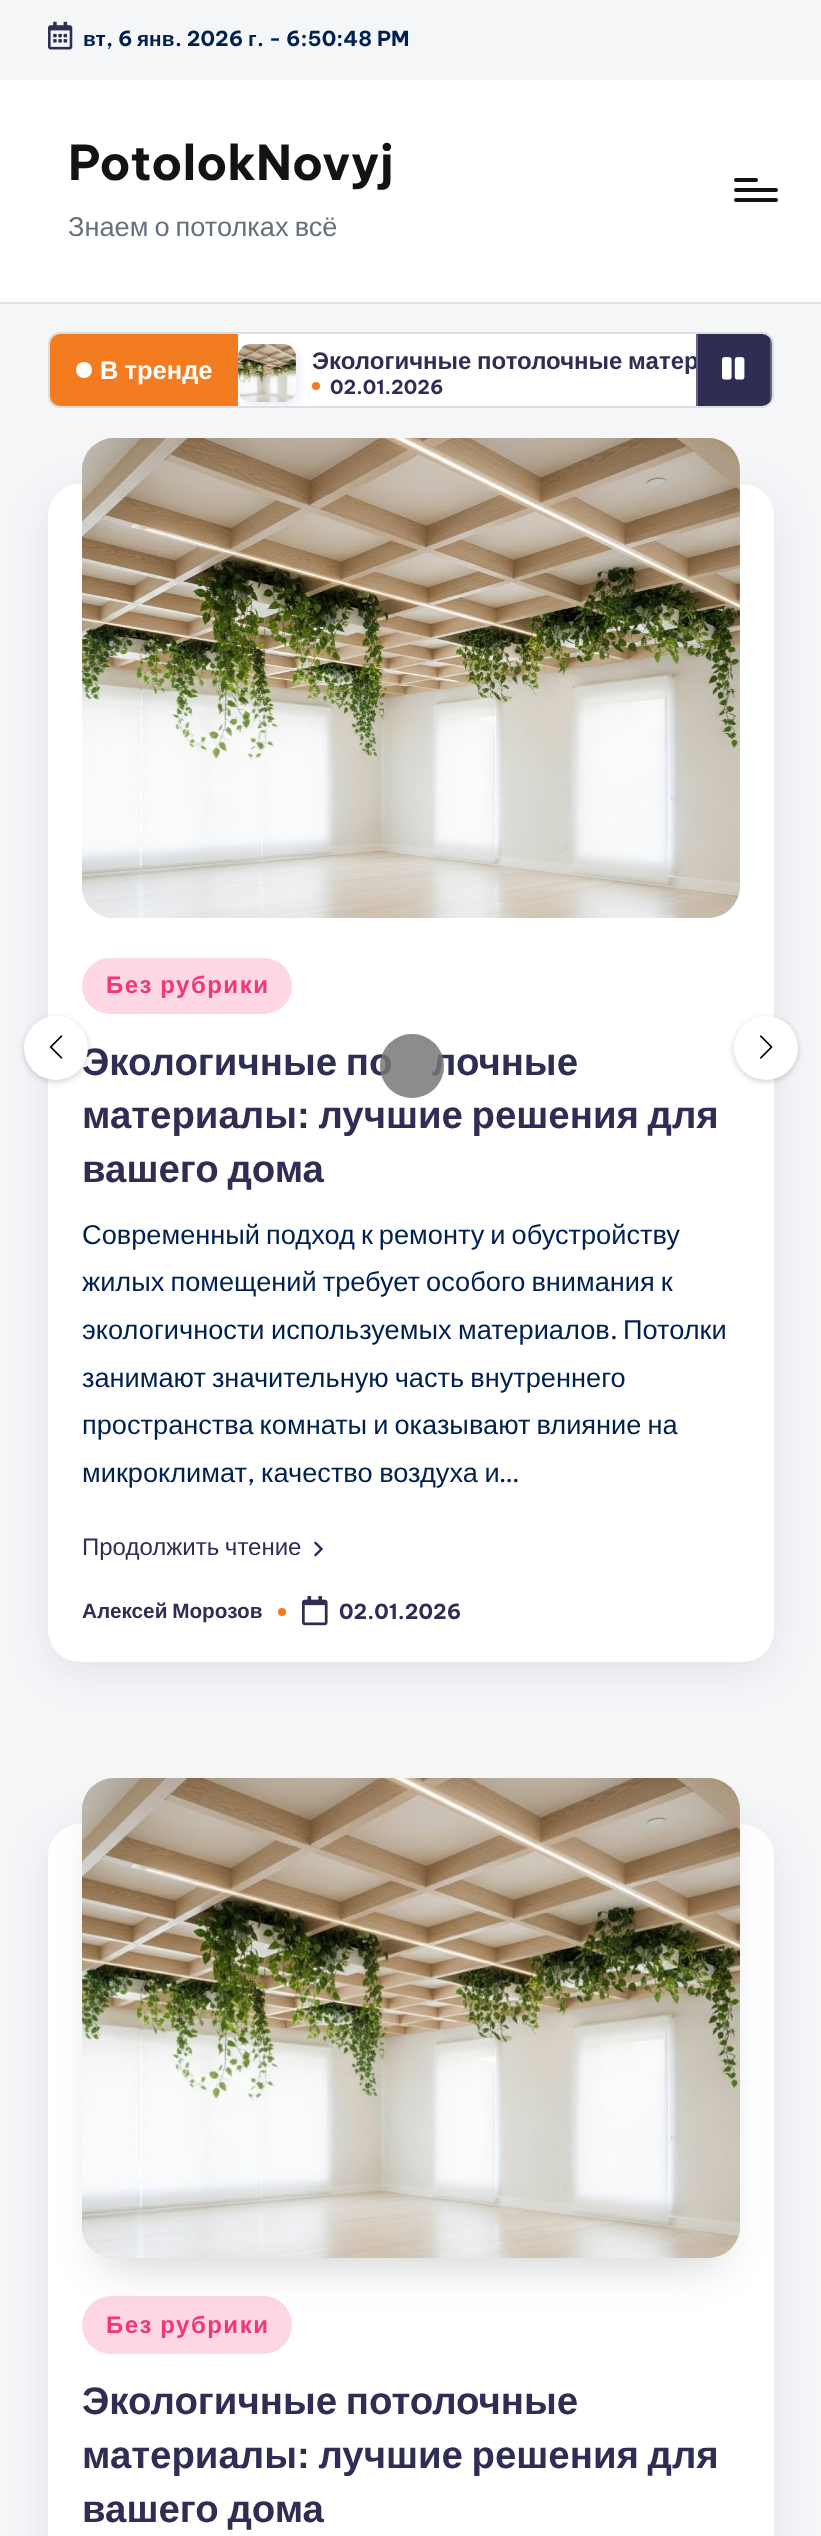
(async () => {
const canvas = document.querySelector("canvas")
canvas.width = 821
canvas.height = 2536
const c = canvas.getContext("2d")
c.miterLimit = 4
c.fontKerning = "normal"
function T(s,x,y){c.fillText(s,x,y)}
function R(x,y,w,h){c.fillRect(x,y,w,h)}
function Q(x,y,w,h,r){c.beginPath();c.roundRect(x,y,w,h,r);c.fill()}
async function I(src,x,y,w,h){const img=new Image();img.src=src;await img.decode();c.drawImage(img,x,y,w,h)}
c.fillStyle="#f4f6f8"
R(0,0,821,2536)
await I("1.png",48,21,25,29)
c.font="bold 20.75px Liberation Sans"
c.fillStyle="#002050"
T("вт",83,46)
c.font="bold 20.75px Be Vietnam Pro"
T(", 6",106,46)
c.font="bold 20.75px Liberation Sans"
T("янв",137,46)
c.font="bold 20.75px Be Vietnam Pro"
T(". 2026",175,46)
c.font="bold 20.75px Liberation Sans"
T("г",248,46)
c.font="bold 20.75px Be Vietnam Pro"
T(". - 6:50:48 PM",257,46)
c.fillStyle="#fff"
R(0,80,821,222)
c.fillStyle="#e3e3e3"
R(0,302,821,2)
c.font="bold 48px Be Vietnam Pro"
c.fillStyle="#131315"
T("PotolokNovyj",68,180)
c.wordSpacing="-1.5px"
c.font="27.2px Liberation Sans"
c.fillStyle="#66717f"
T("Знаем о потолках всё",68,236)
c.fillStyle="#131315"
Q(734,188,44,4,2)
Q(734,178,24,4,2)
Q(734,198,44,4,2)
c.beginPath()
c.roundRect(49,333,724,74,11)
c.strokeStyle="#dcdedf"
c.lineWidth=2
c.stroke()
c.fillStyle="#f47c20"
c.beginPath()
c.roundRect(50,334,188,72,[10,0,0,10])
c.fill()
c.fillStyle="#fff"
c.beginPath()
c.arc(84,370,8,0,7)
c.fill()
c.wordSpacing="-1px"
c.font="bold 25.5px Liberation Sans"
T("В тренде",100,379)
R(238,334,458,72)
c.save()
c.beginPath()
c.rect(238,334,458,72)
c.clip()
c.fillStyle="#5d70ea1a"
c.filter="blur(3px)"
c.beginPath()
c.roundRect(242,348,58,58,12)
c.fill()
c.filter="none"
c.restore()
await I("2.png",238,344,58,58)
c.save()
c.beginPath()
c.rect(238,334,458,72)
c.clip()
c.font="bold 24px Liberation Sans"
c.fillStyle="#302d55"
T("Экологичные потолочные матер",312,369)
c.restore()
c.fillStyle="#f47c20"
c.beginPath()
c.arc(316,386,4,0,7)
c.fill()
c.wordSpacing="0px"
c.font="bold 19.25px Be Vietnam Pro"
c.fillStyle="#302d55"
T("02.01.2026",330,394)
c.beginPath()
c.roundRect(696,334,76,72,[0,10,10,0])
c.fill()
c.save()
c.beginPath()
c.roundRect(50,334,722,72,10)
c.clip()
c.fillStyle="#b9b9b966"
R(770,334,2,72)
c.restore()
c.fillStyle="#67657d"
R(696,334,2,72)
await I("3.png",722,357,23,23)
c.fillStyle="#4543601a"
c.filter="blur(20px)"
c.beginPath()
c.roundRect(48,494,726,1178,32)
c.fill()
c.filter="none"
c.fillStyle="#fff"
Q(48,484,726,1178,32)
c.fillStyle="#fdd7e4"
Q(82,958,210,56,28)
c.fillStyle="#0000002e"
c.filter="blur(3px)"
c.beginPath()
c.roundRect(24,1018,64,64,32)
c.fill()
c.filter="none"
c.wordSpacing="-2px"
c.font="bold 38.4px Liberation Sans"
c.fillStyle="#302d55"
T("Экологичные по",82,1075)
c.fillStyle="#fff"
c.beginPath()
c.arc(56,1048,32,0,7)
c.fill()
await I("4.png",50,1035,13,24)
c.fillStyle="#d1d1d1"
Q(82,438,658,480,32)
await I("5.png",82,438,658,480)
c.letterSpacing="1.5px"
c.wordSpacing="-1px"
c.font="bold 24px Liberation Sans"
c.fillStyle="#f43676"
T("Без рубрики",106,993)
c.letterSpacing="0px"
c.wordSpacing="-2px"
c.font="bold 38.4px Liberation Sans"
c.fillStyle="#302d55"
T("лочные",432,1075)
T("материалы: лучшие решения для",82,1128)
T("вашего дома",82,1182)
c.wordSpacing="-1.5px"
c.font="27.2px Liberation Sans"
c.fillStyle="#002050"
T("Современный подход к ремонту и обустройству",82,1244)
T("жилых помещений требует особого внимания к",82,1291)
c.wordSpacing="-1px"
T("экологичности используемых материалов",82,1339)
c.wordSpacing="0px"
c.font="27.2px Be Vietnam Pro"
T(".",610,1339)
c.font="27.2px Liberation Sans"
T("Потолки",623,1339)
c.wordSpacing="-1.5px"
T("занимают значительную часть внутреннего",82,1387)
T("пространства комнаты и оказывают влияние на",82,1434)
c.wordSpacing="0px"
T("микроклимат",82,1482)
c.font="27.2px Be Vietnam Pro"
T(",",247,1482)
c.wordSpacing="-1px"
c.font="27.2px Liberation Sans"
T("качество воздуха и",261,1482)
c.wordSpacing="0px"
c.font="27.2px Be Vietnam Pro"
T("…",499,1482)
c.wordSpacing="-1px"
c.font="24px Liberation Sans"
c.fillStyle="#302d55"
T("Продолжить чтение",82,1555)
await I("6.png",314,1541,9,16)
c.font="bold 20.75px Liberation Sans"
T("Алексей Морозов",82,1618)
c.fillStyle="#f47c20"
c.beginPath()
c.arc(282,1612,4,0,7)
c.fill()
await I("7.png",302,1596,26,30)
c.wordSpacing="0px"
c.font="bold 20.75px Be Vietnam Pro"
c.fillStyle="#302d55"
T("02.01.2026",339,1619)
c.fillStyle="#0000002e"
c.filter="blur(3px)"
c.beginPath()
c.roundRect(734,1018,64,64,32)
c.fill()
c.filter="none"
c.fillStyle="#fff"
c.beginPath()
c.arc(766,1048,32,0,7)
c.fill()
await I("8.png",760,1035,13,24)
c.fillStyle="#76767699"
c.beginPath()
c.arc(412,1066,32,0,7)
c.fill()
c.beginPath()
c.arc(412,1066,32,0,7)
c.fill()
c.fillStyle="#4543601a"
c.filter="blur(20px)"
c.beginPath()
c.roundRect(48,1834,726,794,32)
c.fill()
c.filter="none"
c.fillStyle="#fff"
Q(48,1824,726,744,32)
c.fillStyle="#fdd7e4"
Q(82,2296,210,58,29)
c.fillStyle="#0000002e"
c.filter="blur(22.5px)"
c.beginPath()
c.roundRect(102,1822,618,442,12)
c.fill()
c.filter="none"
c.fillStyle="#d1d1d1"
Q(82,1778,658,480,32)
await I("9.png",82,1778,658,480)
c.letterSpacing="1.5px"
c.wordSpacing="-1px"
c.font="bold 24px Liberation Sans"
c.fillStyle="#f43676"
T("Без рубрики",106,2333)
c.letterSpacing="0px"
c.wordSpacing="-2px"
c.font="bold 38.4px Liberation Sans"
c.fillStyle="#302d55"
T("Экологичные потолочные",82,2414)
T("материалы: лучшие решения для",82,2468)
T("вашего дома",82,2522)
})()
